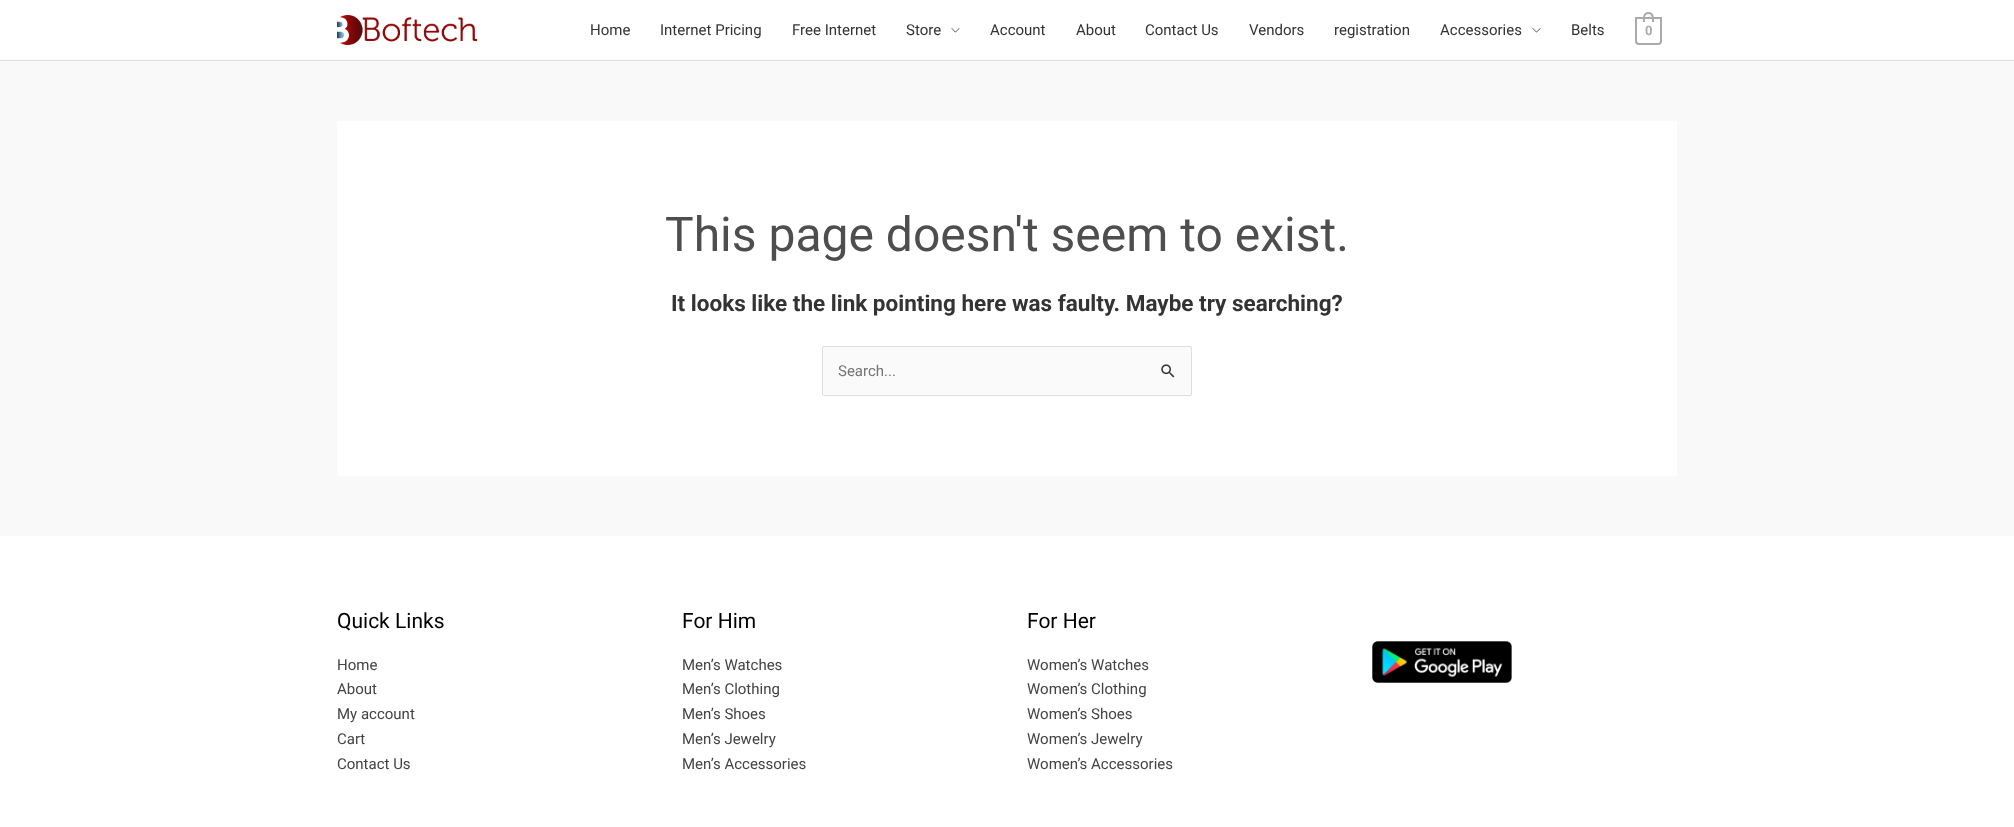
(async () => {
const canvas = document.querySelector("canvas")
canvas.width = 2014
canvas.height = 827
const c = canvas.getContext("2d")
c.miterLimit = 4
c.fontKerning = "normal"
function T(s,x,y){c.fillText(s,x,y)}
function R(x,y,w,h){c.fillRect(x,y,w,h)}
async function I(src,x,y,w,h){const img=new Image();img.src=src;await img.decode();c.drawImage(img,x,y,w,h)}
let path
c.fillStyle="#f9f9f9"
R(0,0,2014,827)
c.fillStyle="#fff"
R(0,0,2014,60)
c.fillStyle="#ddd"
R(0,60,2014,1)
await I("1.png",337,15,140,30)
c.font="15px Roboto"
c.fillStyle="#333"
T("Home",590,35)
T("Internet Pricing",660,35)
T("Free Internet",792,35)
T("Store",906,35)
await I("2.png",951,28,9,5)
T("Account",990,35)
T("About",1076,35)
T("Contact Us",1145,35)
T("Vendors",1249,35)
T("registration",1334,35)
T("Accessories",1440,35)
await I("2.png",1532,28,9,5)
T("Belts",1571,35)
c.beginPath()
c.roundRect(1636,18,25,26,[0,0,3,3])
c.strokeStyle="#aaa"
c.lineWidth=2
c.stroke()
c.fillStyle="#aaa"
path = new Path2D("M1648.5 12c6 0 5.5 6 5.5 10h-11c0-4-.5-10 5.5-10zm0 2c4 0 3.5 5 3.5 8h-7c0-3-1-8 3.5-8z")
c.fill(path,"evenodd")
c.font="bold 13px Roboto"
T("0",1645,35)
c.fillStyle="#fff"
R(337,121,1340,355)
c.font="48px Roboto"
c.fillStyle="#4e4e4e"
T("This page doesn't seem to exist.",665,251)
c.font="bold 22.5px Roboto"
c.fillStyle="#333"
T("It looks like the link pointing here was faulty. Maybe try searching?",671,311)
c.fillStyle="#fafafa"
c.beginPath()
c.roundRect(822.5,346.5,369,49,1.5)
c.fill()
c.strokeStyle="#ddd"
c.lineWidth=1
c.stroke()
c.font="15px Roboto"
c.fillStyle="#757575"
T("Search...",838,376)
await I("3.png",1161,364,14,14)
c.fillStyle="#fff"
R(0,536,2014,291)
c.font="21px Roboto"
c.fillStyle="#000"
T("Quick Links",337,628)
c.font="15px Roboto"
c.fillStyle="#434343"
T("Home",337,670)
T("About",337,694)
T("My account",337,719)
T("Cart",337,744)
T("Contact Us",337,769)
c.font="21px Roboto"
c.fillStyle="#000"
T("For Him",682,628)
c.font="15px Roboto"
c.fillStyle="#434343"
T("Men’s Watches",682,670)
T("Men’s Clothing",682,694)
T("Men’s Shoes",682,719)
T("Men’s Jewelry",682,744)
T("Men’s Accessories",682,769)
c.font="21px Roboto"
c.fillStyle="#000"
T("For Her",1027,628)
c.font="15px Roboto"
c.fillStyle="#434343"
T("Women’s Watches",1027,670)
T("Women’s Clothing",1027,694)
T("Women’s Shoes",1027,719)
T("Women’s Jewelry",1027,744)
T("Women’s Accessories",1027,769)
await I("4.png",1372,641,140,42)
})()
